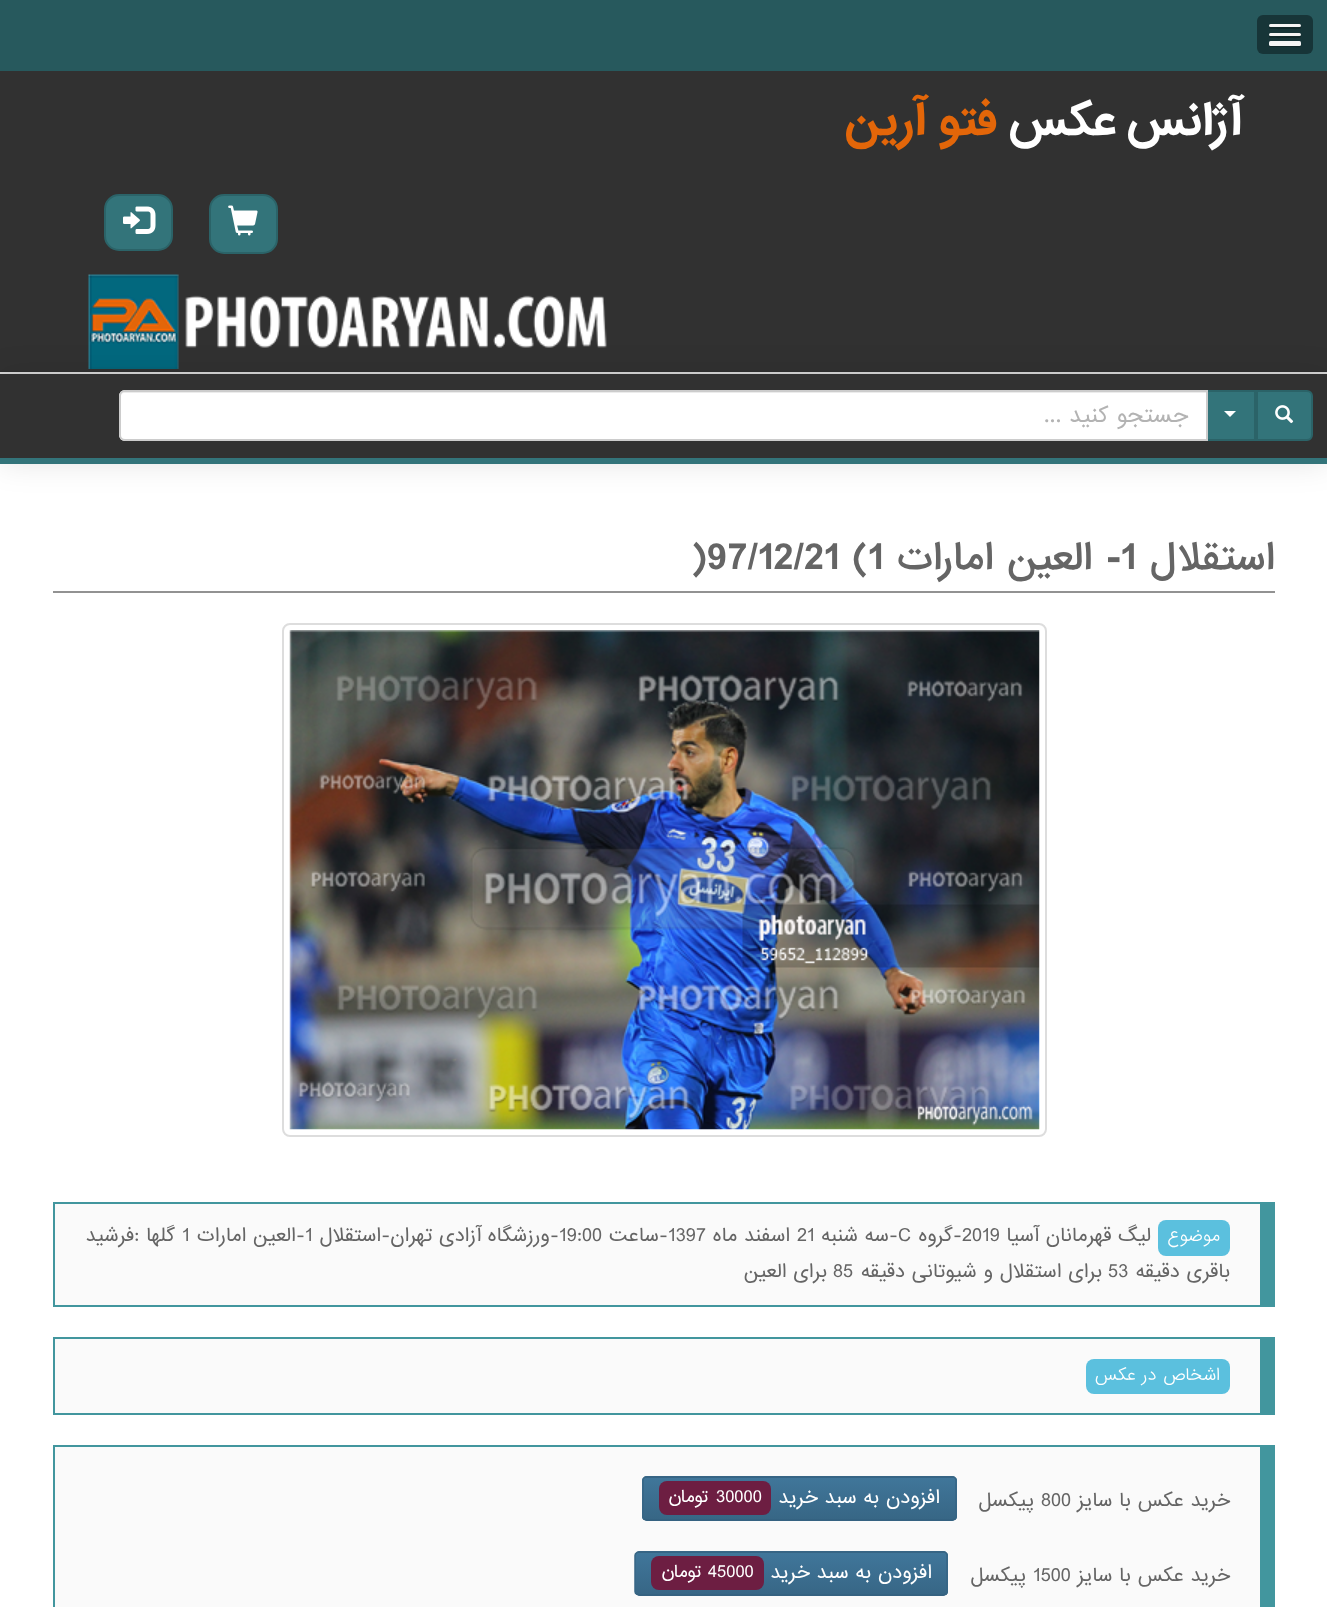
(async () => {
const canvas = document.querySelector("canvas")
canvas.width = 1327
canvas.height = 1607
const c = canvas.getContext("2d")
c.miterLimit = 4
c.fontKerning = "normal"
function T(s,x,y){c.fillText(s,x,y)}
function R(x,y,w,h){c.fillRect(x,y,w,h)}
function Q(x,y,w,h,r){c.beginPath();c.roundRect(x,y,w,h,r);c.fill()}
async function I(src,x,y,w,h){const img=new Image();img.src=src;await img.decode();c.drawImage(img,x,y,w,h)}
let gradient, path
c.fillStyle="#27595d"
R(0,0,1327,1607)
c.fillStyle="#173538"
Q(1257,15,56,39,6)
c.fillStyle="#11282a"
path = new Path2D("M1269.5 26.5c-.5 .5-.5 1.5 0 2c1 1 17.5 .5 20.5 .5c1.5 0 9 .5 10.5-.5c.5-.5 .5-1.5 0-2.5c-1 2-6 1-6.5 1c-3 0-23.5 .5-24.5-.5z")
c.fill(path)
c.fillStyle="#f5f5f5"
Q(1269,24,32,3,1.5)
c.fillStyle="#11282a"
path = new Path2D("M1269.5 35.5c-.5 .5-.5 1.5 0 2c1 1 17.5 .5 20.5 .5c1.5 0 9 .5 10.5-.5c.5-.5 .5-1.5 0-2.5c-1 2-6 1-6.5 1c-3 0-23.5 .5-24.5-.5z")
c.fill(path)
c.fillStyle="#f5f5f5"
Q(1269,33,32,3,1.5)
c.fillStyle="#11282a"
path = new Path2D("M1269 43.5c0 4.5 1 3.5 6.5 3.5h19c4 0 6.5 1.5 6.5-2.5c0-1 0-1.5-.5-2v1c0 1-.5 1.5-1.5 1.5h-28.5c-1 0-1.5-.5-1.5-1.5z")
c.fill(path)
c.fillStyle="#f5f5f5"
Q(1269,41,32,5,1.5)
c.fillStyle="#313131"
R(0,71,1327,300)
c.fillStyle="#d6d6d6"
R(0,373,1327,1)
c.fillStyle="#2e2e2e"
R(0,371,1327,1)
c.fillStyle="#d5d5d5"
R(0,372,1327,1)
c.direction="rtl"
c.font="bold 42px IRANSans"
c.fillStyle="#fff"
T("آژانس عکس",1242,134)
c.fillStyle="#e36609"
T("فتو آرین",997,134)
c.fillStyle="#33747a"
c.beginPath()
c.roundRect(210,195,67,58,14)
c.fill()
c.strokeStyle="#2b6368"
c.lineWidth=2
c.stroke()
await I("1.png",228,205,30,31)
c.beginPath()
c.roundRect(105,195,67,55,14)
c.fill()
c.stroke()
await I("2.png",123,206,33,28)
await I("3.png",88,274,519,95)
c.fillStyle="#fff"
R(0,464,1327,1143)
c.fillStyle="#0000001a"
c.filter="blur(15px)"
c.beginPath()
c.rect(0,374,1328,90)
c.fill()
c.filter="none"
c.fillStyle="#313131"
R(0,374,1327,84)
c.fillStyle="#33747a"
R(0,458,1327,6)
c.beginPath()
c.roundRect(1257,391,55,49,[0,5,5,0])
c.fill()
c.stroke()
await I("4.png",1275,405,19,19)
R(1208,392,46,47)
c.strokeRect(1206,391,49,49)
c.fillStyle="#fff"
path = new Path2D("M1224 411h12l-6 6z")
c.fill(path)
c.beginPath()
c.roundRect(119,390,1089,51,[6,0,0,6])
c.fill()
c.fillStyle="#ececec"
path = new Path2D("M124 393h1082v-1h-1081c-3 0-5 3-5 6c0-3 2-5 4-5z")
c.fill(path)
c.beginPath()
c.roundRect(120,391,1087,49,[5,0,0,5])
c.strokeStyle="#ccc"
c.stroke()
c.font="21px IRANSans"
c.fillStyle="#b3b3b3"
T("جستجو کنید ...",1188,422)
c.fillStyle="#929292"
R(53,591,1222,2)
c.font="500 36px IRANSans"
c.fillStyle="#656565"
T("استقلال",1275,569)
c.direction="ltr"
T("1",1121,569)
c.direction="rtl"
T("- العین امارات",1121,569)
c.direction="ltr"
T("(1",853,569)
T("97/12/21",707,569)
T(")",692,569)
c.beginPath()
c.roundRect(283,624,763,512,7)
c.strokeStyle="#ddd"
c.stroke()
await I("5.png",289,630,751,500)
c.fillStyle="#fafafa"
R(55,1204,1205,101)
c.fillStyle="#42969e"
R(53,1202,1207,2)
R(1260,1202,15,103)
R(53,1305,1222,2)
R(53,1202,2,105)
c.fillStyle="#5bc0de"
Q(1158,1220,72,36,8)
c.direction="rtl"
c.font="300 16.25px IRANSans"
c.fillStyle="#fff"
T("موضوع",1220,1241)
c.font="18px IRANSans"
c.fillStyle="#656565"
T("لیگ قهرمانان آسیا",1151,1241)
c.direction="ltr"
T("2019",962,1241)
c.direction="rtl"
T("-گروه",962,1241)
c.direction="ltr"
T("C",898,1241)
c.direction="rtl"
T("-سه شنبه",898,1241)
c.direction="ltr"
T("21",797,1241)
c.direction="rtl"
T("اسفند ماه",790,1241)
c.direction="ltr"
T("1397",668,1241)
c.direction="rtl"
T("-ساعت",668,1241)
c.direction="ltr"
T("19:00",559,1241)
c.direction="rtl"
T("-ورزشگاه آزادی تهران-استقلال",559,1241)
c.direction="ltr"
T("1",305,1241)
c.direction="rtl"
T("-العین امارات",305,1241)
c.direction="ltr"
T("1",182,1241)
c.direction="rtl"
T("گلها :فرشید",175,1241)
T("باقری دقیقه",1230,1277)
c.direction="ltr"
T("53",1108,1277)
c.direction="rtl"
T("برای استقلال و شیوتانی دقیقه",1102,1277)
c.direction="ltr"
T("85",833,1277)
c.direction="rtl"
T("برای العین",827,1277)
c.fillStyle="#fafafa"
R(55,1339,1205,74)
c.fillStyle="#42969e"
R(53,1337,1207,2)
R(1260,1337,15,76)
R(53,1413,1222,2)
R(53,1337,2,78)
c.fillStyle="#5bc0de"
Q(1086,1359,144,35,8)
c.font="300 16.25px IRANSans"
c.fillStyle="#fff"
T("اشخاص در عکس",1220,1380)
c.fillStyle="#fafafa"
R(55,1447,1205,160)
c.fillStyle="#42969e"
R(53,1445,1207,2)
R(1260,1445,15,162)
R(53,1445,2,162)
c.font="18px IRANSans"
c.fillStyle="#656565"
T("خرید عکس با سایز",1230,1506)
c.direction="ltr"
T("800",1041,1506)
c.direction="rtl"
T("پیکسل",1034,1506)
c.fillStyle="#386685"
Q(642,1476,315,45,5)
c.save()
c.beginPath()
c.roundRect(642,1476,315,45,5)
c.clip()
gradient = c.createLinearGradient(800,1478,800,1520)
gradient.addColorStop(0,"#40769a")
gradient.addColorStop(1,"#376685")
c.fillStyle = gradient
R(642,1478,315,42)
c.restore()
path = new Path2D("M955 1519l-2.5 1h-306l-2.5-1")
c.strokeStyle="#356280"
c.lineWidth=1.5
c.stroke(path)
path = new Path2D("M644 1519c-1-.5-1-1.5-1-2.5v-36c0-1 0-2 1-2.5c.5-1 1.5-1 2.5-1h306c1 0 2 0 2.5 1c1 .5 1 1.5 1 2.5v36c0 1 0 2-1 2.5")
c.strokeStyle="#376685"
c.stroke(path)
c.fillStyle="#fff"
T("افزودن به سبد خرید",940,1503)
c.fillStyle="#6d1e42"
c.beginPath()
c.roundRect(716,1481,55,34,[0,8,8,0])
c.fill()
c.direction="ltr"
c.font="16.5px IRANSans"
c.fillStyle="#fff"
T("30000",716,1502)
c.fillStyle="#6d1e42"
c.beginPath()
c.roundRect(659,1481,57,34,[8,0,0,8])
c.fill()
c.direction="rtl"
c.fillStyle="#fff"
T("تومان",709,1502)
c.font="18px IRANSans"
c.fillStyle="#656565"
T("خرید عکس با سایز",1230,1581)
c.direction="ltr"
T("1500",1033,1581)
c.direction="rtl"
T("پیکسل",1026,1581)
c.fillStyle="#386685"
Q(635,1551,313,45,5)
c.save()
c.beginPath()
c.roundRect(635,1551,313,45,5)
c.clip()
gradient = c.createLinearGradient(791,1553,791,1595)
gradient.addColorStop(0,"#40769a")
gradient.addColorStop(1,"#376685")
c.fillStyle = gradient
R(635,1553,313,42)
c.restore()
path = new Path2D("M946 1594l-2.5 1h-304.5l-2.5-1")
c.strokeStyle="#356280"
c.stroke(path)
path = new Path2D("M636.5 1594c-1-.5-1.5-1.5-1.5-2.5v-36c0-1 .5-2 1.5-2.5c.5-1 1.5-1 2.5-1h304.5c1 0 2 0 2.5 1c1 .5 1 1.5 1 2.5v36c0 1 0 2-1 2.5")
c.strokeStyle="#376685"
c.stroke(path)
c.fillStyle="#fff"
T("افزودن به سبد خرید",932,1578)
c.fillStyle="#6d1e42"
c.beginPath()
c.roundRect(708,1556,56,34,[0,8,8,0])
c.fill()
c.direction="ltr"
c.font="16.5px IRANSans"
c.fillStyle="#fff"
T("45000",708,1577)
c.fillStyle="#6d1e42"
c.beginPath()
c.roundRect(651,1556,57,34,[8,0,0,8])
c.fill()
c.direction="rtl"
c.fillStyle="#fff"
T("تومان",702,1577)
})()
